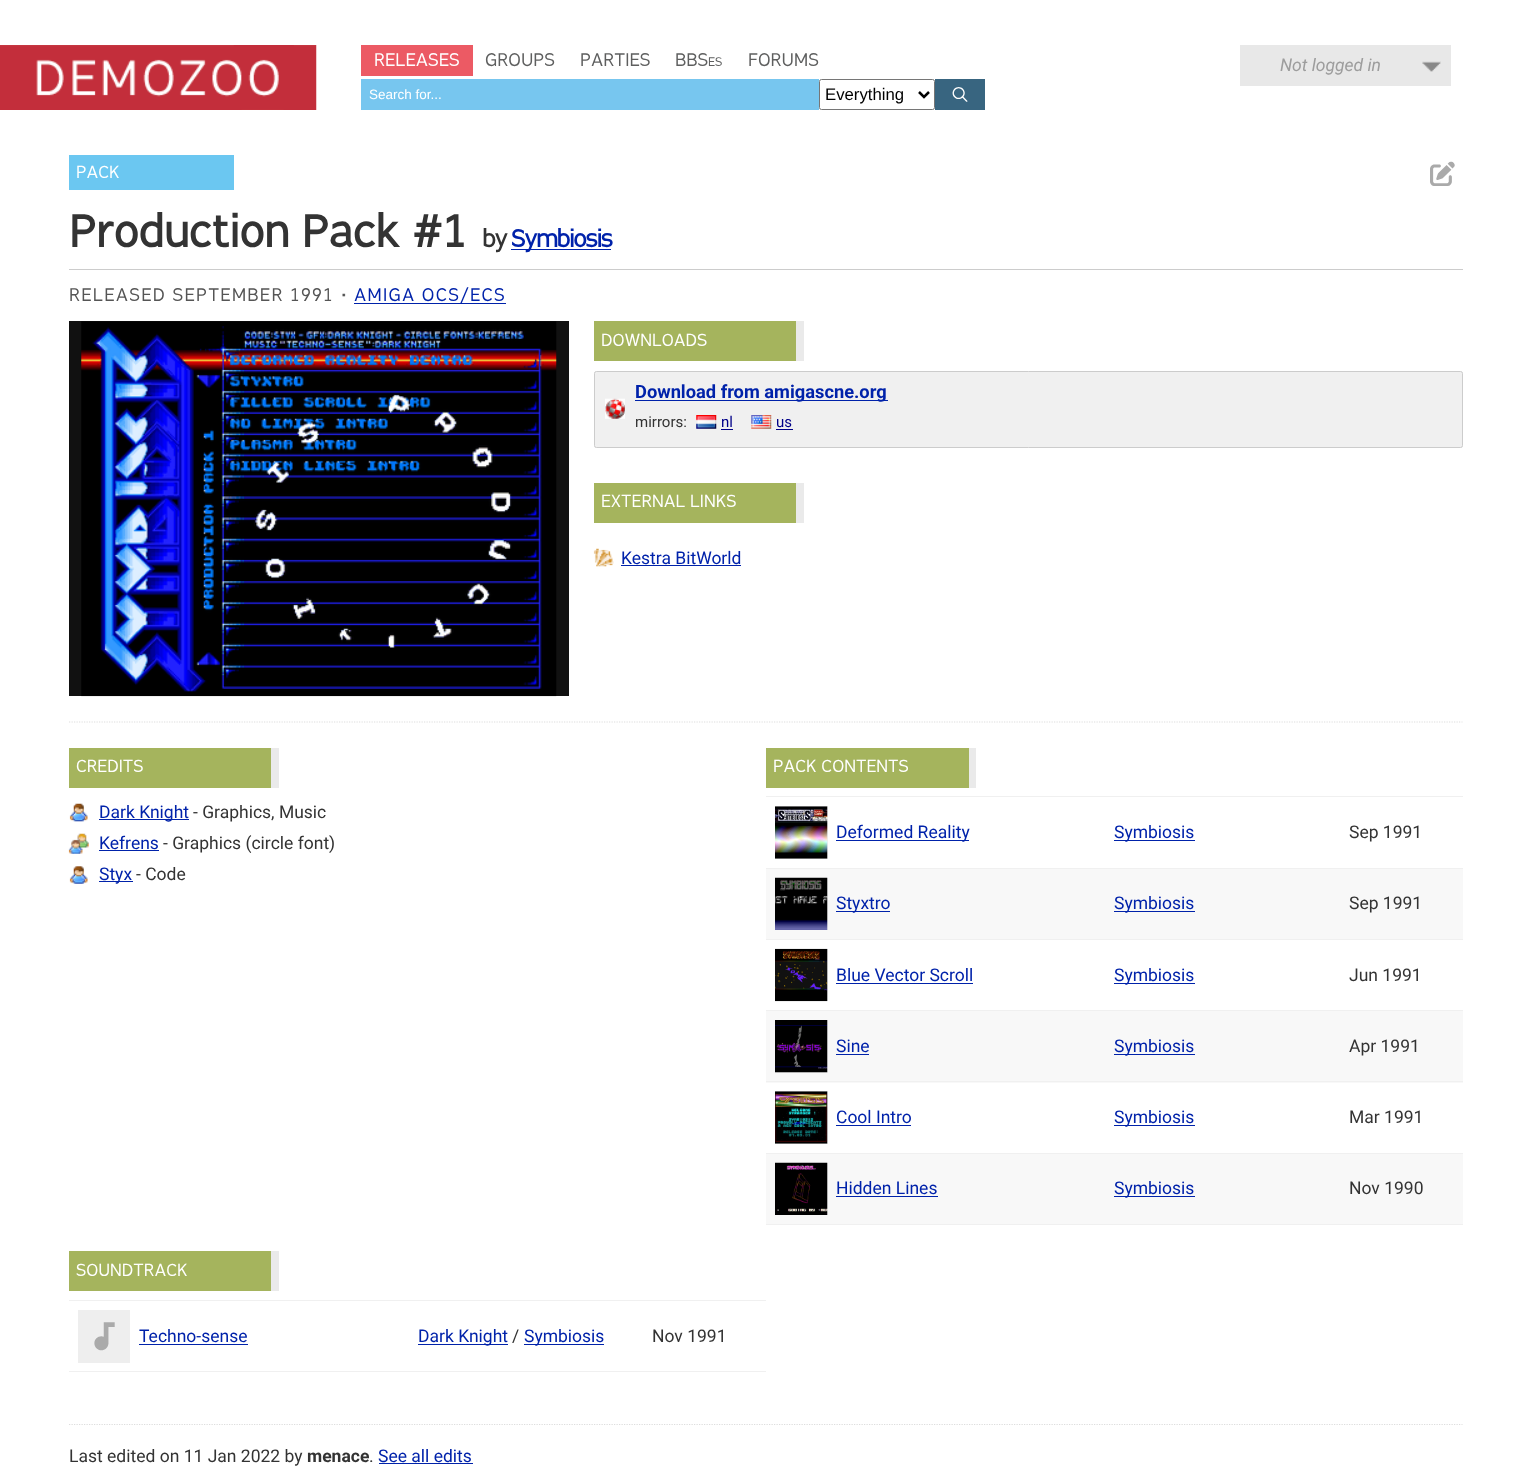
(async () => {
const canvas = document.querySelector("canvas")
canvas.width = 1531
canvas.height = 1478
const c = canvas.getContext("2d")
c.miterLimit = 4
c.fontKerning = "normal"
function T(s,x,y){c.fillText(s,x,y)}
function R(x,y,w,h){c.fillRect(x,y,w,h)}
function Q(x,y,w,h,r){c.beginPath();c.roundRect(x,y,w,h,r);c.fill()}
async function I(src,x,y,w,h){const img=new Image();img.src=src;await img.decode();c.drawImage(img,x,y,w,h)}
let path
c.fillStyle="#fff"
R(0,0,1531,1478)
await I("1.png",0,45,317,65)
c.fillStyle="#ec5a64"
R(361,45,112,31)
c.font="17.5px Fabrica"
c.fillStyle="#fff"
T("RELEASES",374,66)
c.fillStyle="#5e5f5f"
T("GROUPS",485,66)
T("PARTIES",580,66)
T("BBS",675,66)
c.font="12px Fabrica"
T("ES",708,66)
c.font="17.5px Fabrica"
T("FORUMS",748,66)
c.fillStyle="#77c6ef"
R(361,79,458,31)
c.font="13.5px Liberation Sans"
c.fillStyle="#fff"
T("Search for...",369,99)
c.beginPath()
c.roundRect(819.5,79.5,115,30,2)
c.strokeStyle="#767676"
c.stroke()
path = new Path2D("M919 92l5 5l5-5")
c.strokeStyle="#000"
c.lineWidth=2.5
c.stroke(path)
c.font="16.75px Liberation Sans"
c.fillStyle="#000"
T("Everything",825,100)
c.fillStyle="#386580"
R(935,79,50,31)
await I("2.png",952,87,16,15)
c.fillStyle="#e8e8e8"
R(1240,45,211,41)
await I("3.png",1422,61,19,11)
c.font="italic 17.5px Roboto"
c.fillStyle="#9d9d9d"
T("Not logged in",1280,71)
c.fillStyle="#6bc7f1"
R(69,155,165,35)
c.font="16.75px Fabrica"
c.fillStyle="#fff"
T("PACK",76,178)
await I("4.png",1430,161,25,25)
c.font="bold 43.25px Fabrica"
c.fillStyle="#333"
T("Production Pack #1",69,247)
c.letterSpacing="-1.25px"
c.font="bold 23.5px Fabrica"
T("by",482,247)
c.fillStyle="#02a"
R(511,249,100,1)
T("Symbiosis",511,247)
c.fillStyle="#ccc"
R(69,269,1394,1)
c.letterSpacing="1.25px"
c.font="17.5px Fabrica"
c.fillStyle="#555"
T("RELEASED SEPTEMBER 1991",69,301)
await I("5.png",342,293,4,4)
c.fillStyle="#02a"
T("AMIGA OCS/ECS",354,301)
R(354,303,152,1)
c.fillStyle="#111"
R(69,321,500,375)
await I("6.png",81,321,476,376)
c.fillStyle="#a5b45d"
R(594,321,202,40)
c.fillStyle="#eaeaea"
R(796,321,8,40)
c.letterSpacing="0px"
c.font="16.75px Fabrica"
c.fillStyle="#fff"
T("DOWNLOADS",601,346)
c.fillStyle="#f0f0f0"
Q(594,371,869,77,2.5)
await I("7.png",605,398,20,21)
c.beginPath()
c.roundRect(594.5,371.5,868,76,2)
c.strokeStyle="#ccc"
c.lineWidth=1
c.stroke()
c.fillStyle="#02a"
R(635,400,253,1)
c.font="bold 18.3px Roboto"
T("Download from amigascne.org",635,398)
c.font="15px Roboto"
c.fillStyle="#333"
T("mirrors:",635,427)
await I("8.png",696,415,21,14)
c.fillStyle="#008"
T("nl",721,427)
R(721,429,12,1)
await I("9.png",751,415,21,14)
T("us",776,427)
R(776,429,17,1)
c.fillStyle="#a5b45d"
R(594,483,202,40)
c.fillStyle="#eaeaea"
R(796,483,8,40)
c.font="16.75px Fabrica"
c.fillStyle="#fff"
T("EXTERNAL LINKS",601,507)
await I("10.png",593,548,21,19)
c.font="17.5px Roboto"
c.fillStyle="#02a"
T("Kestra BitWorld",621,564)
R(621,565,120,1)
path = new Path2D("M69 722h1393.5")
c.strokeStyle="#ddd"
c.lineWidth=1.2
c.setLineDash([1.25,1.25])
c.stroke(path)
path = new Path2D("M69 1424.5h1393.5")
c.stroke(path)
c.fillStyle="#a5b45d"
R(69,748,202,40)
c.fillStyle="#eaeaea"
R(271,748,8,40)
c.font="16.75px Fabrica"
c.fillStyle="#fff"
T("CREDITS",76,772)
await I("11.png",69,803,19,19)
c.fillStyle="#02a"
R(99,819,90,1)
c.font="17.5px Roboto"
T("Dark Knight",99,818)
c.fillStyle="#333"
T("- Graphics, Music",193,818)
await I("12.png",68,833,21,21)
c.fillStyle="#02a"
T("Kefrens",99,849)
R(99,850,60,1)
c.fillStyle="#333"
T("- Graphics (circle font)",163,849)
await I("13.png",69,866,19,18)
c.fillStyle="#02a"
R(99,881,34,1)
T("Styx",99,880)
c.fillStyle="#333"
T("- Code",136,880)
c.fillStyle="#a5b45d"
R(766,748,203,40)
c.fillStyle="#eaeaea"
R(969,748,7,40)
c.font="16.75px Fabrica"
c.fillStyle="#fff"
T("PACK CONTENTS",773,772)
c.fillStyle="#f0f0f0"
R(766,796,697,1)
c.fillStyle="#eee"
R(775,806,53,53)
await I("14.png",775,806,53,53)
c.fillStyle="#02a"
R(836,840,133,1)
c.font="17.5px Roboto"
T("Deformed Reality",836,838)
R(1114,840,81,1)
T("Symbiosis",1114,838)
c.fillStyle="#333"
T("Sep 1991",1349,838)
c.fillStyle="#f8f8f8"
R(766,869,697,70)
c.fillStyle="#f0f0f0"
R(766,868,697,1)
c.fillStyle="#eee"
R(827,878,1,52)
await I("15.png",775,877,53,53)
c.fillStyle="#02a"
R(836,911,54,1)
T("Styxtro",836,909)
R(1114,911,81,1)
T("Symbiosis",1114,909)
c.fillStyle="#333"
T("Sep 1991",1349,909)
c.fillStyle="#f0f0f0"
R(766,939,697,1)
c.fillStyle="#eee"
R(827,949,1,52)
await I("16.png",775,948,53,54)
c.fillStyle="#02a"
T("Blue Vector Scroll",836,981)
R(836,983,137,1)
R(1114,983,81,1)
T("Symbiosis",1114,981)
c.fillStyle="#333"
T("Jun 1991",1349,981)
c.fillStyle="#f8f8f8"
R(766,1011,697,72)
c.fillStyle="#f0f0f0"
R(766,1010,697,1)
c.fillStyle="#eee"
R(775,1020,53,53)
await I("17.png",775,1020,53,53)
c.fillStyle="#02a"
T("Sine",836,1052)
R(836,1054,33,1)
R(1114,1054,81,1)
T("Symbiosis",1114,1052)
c.fillStyle="#333"
T("Apr 1991",1349,1052)
c.fillStyle="#f0f0f0"
R(766,1081,697,1)
c.fillStyle="#eee"
R(775,1091,53,53)
await I("18.png",775,1091,53,53)
c.fillStyle="#02a"
T("Cool Intro",836,1123)
R(836,1125,75,1)
R(1114,1125,81,1)
T("Symbiosis",1114,1123)
c.fillStyle="#333"
T("Mar 1991",1349,1123)
c.fillStyle="#f8f8f8"
R(766,1154,697,70)
c.fillStyle="#f0f0f0"
R(766,1153,697,1)
R(766,1224,697,1)
c.fillStyle="#eee"
R(827,1163,1,52)
await I("19.png",775,1162,53,53)
c.fillStyle="#02a"
T("Hidden Lines",836,1194)
R(836,1196,102,1)
R(1114,1196,81,1)
T("Symbiosis",1114,1194)
c.fillStyle="#333"
T("Nov 1990",1349,1194)
c.fillStyle="#a5b45d"
R(69,1251,202,40)
c.fillStyle="#eaeaea"
R(271,1251,8,40)
c.font="16.75px Fabrica"
c.fillStyle="#fff"
T("SOUNDTRACK",76,1276)
c.fillStyle="#f0f0f0"
R(69,1300,697,1)
R(69,1371,697,1)
c.fillStyle="#eee"
R(78,1310,52,53)
await I("20.png",94,1322,21,29)
c.font="17.5px Roboto"
c.fillStyle="#02a"
T("Techno-sense",139,1342)
R(139,1344,109,1)
R(418,1344,90,1)
T("Dark Knight",418,1342)
c.fillStyle="#333"
T("/",512,1342)
c.fillStyle="#02a"
R(524,1344,80,1)
T("Symbiosis",524,1342)
c.fillStyle="#333"
T("Nov 1991",652,1342)
T("Last edited on 11 Jan 2022 by",69,1462)
c.font="bold 17.5px Roboto"
T("menace",307,1462)
c.font="17.5px Roboto"
T(".",369,1462)
c.fillStyle="#02a"
T("See all edits",378,1462)
R(379,1463,94,1)
})()
